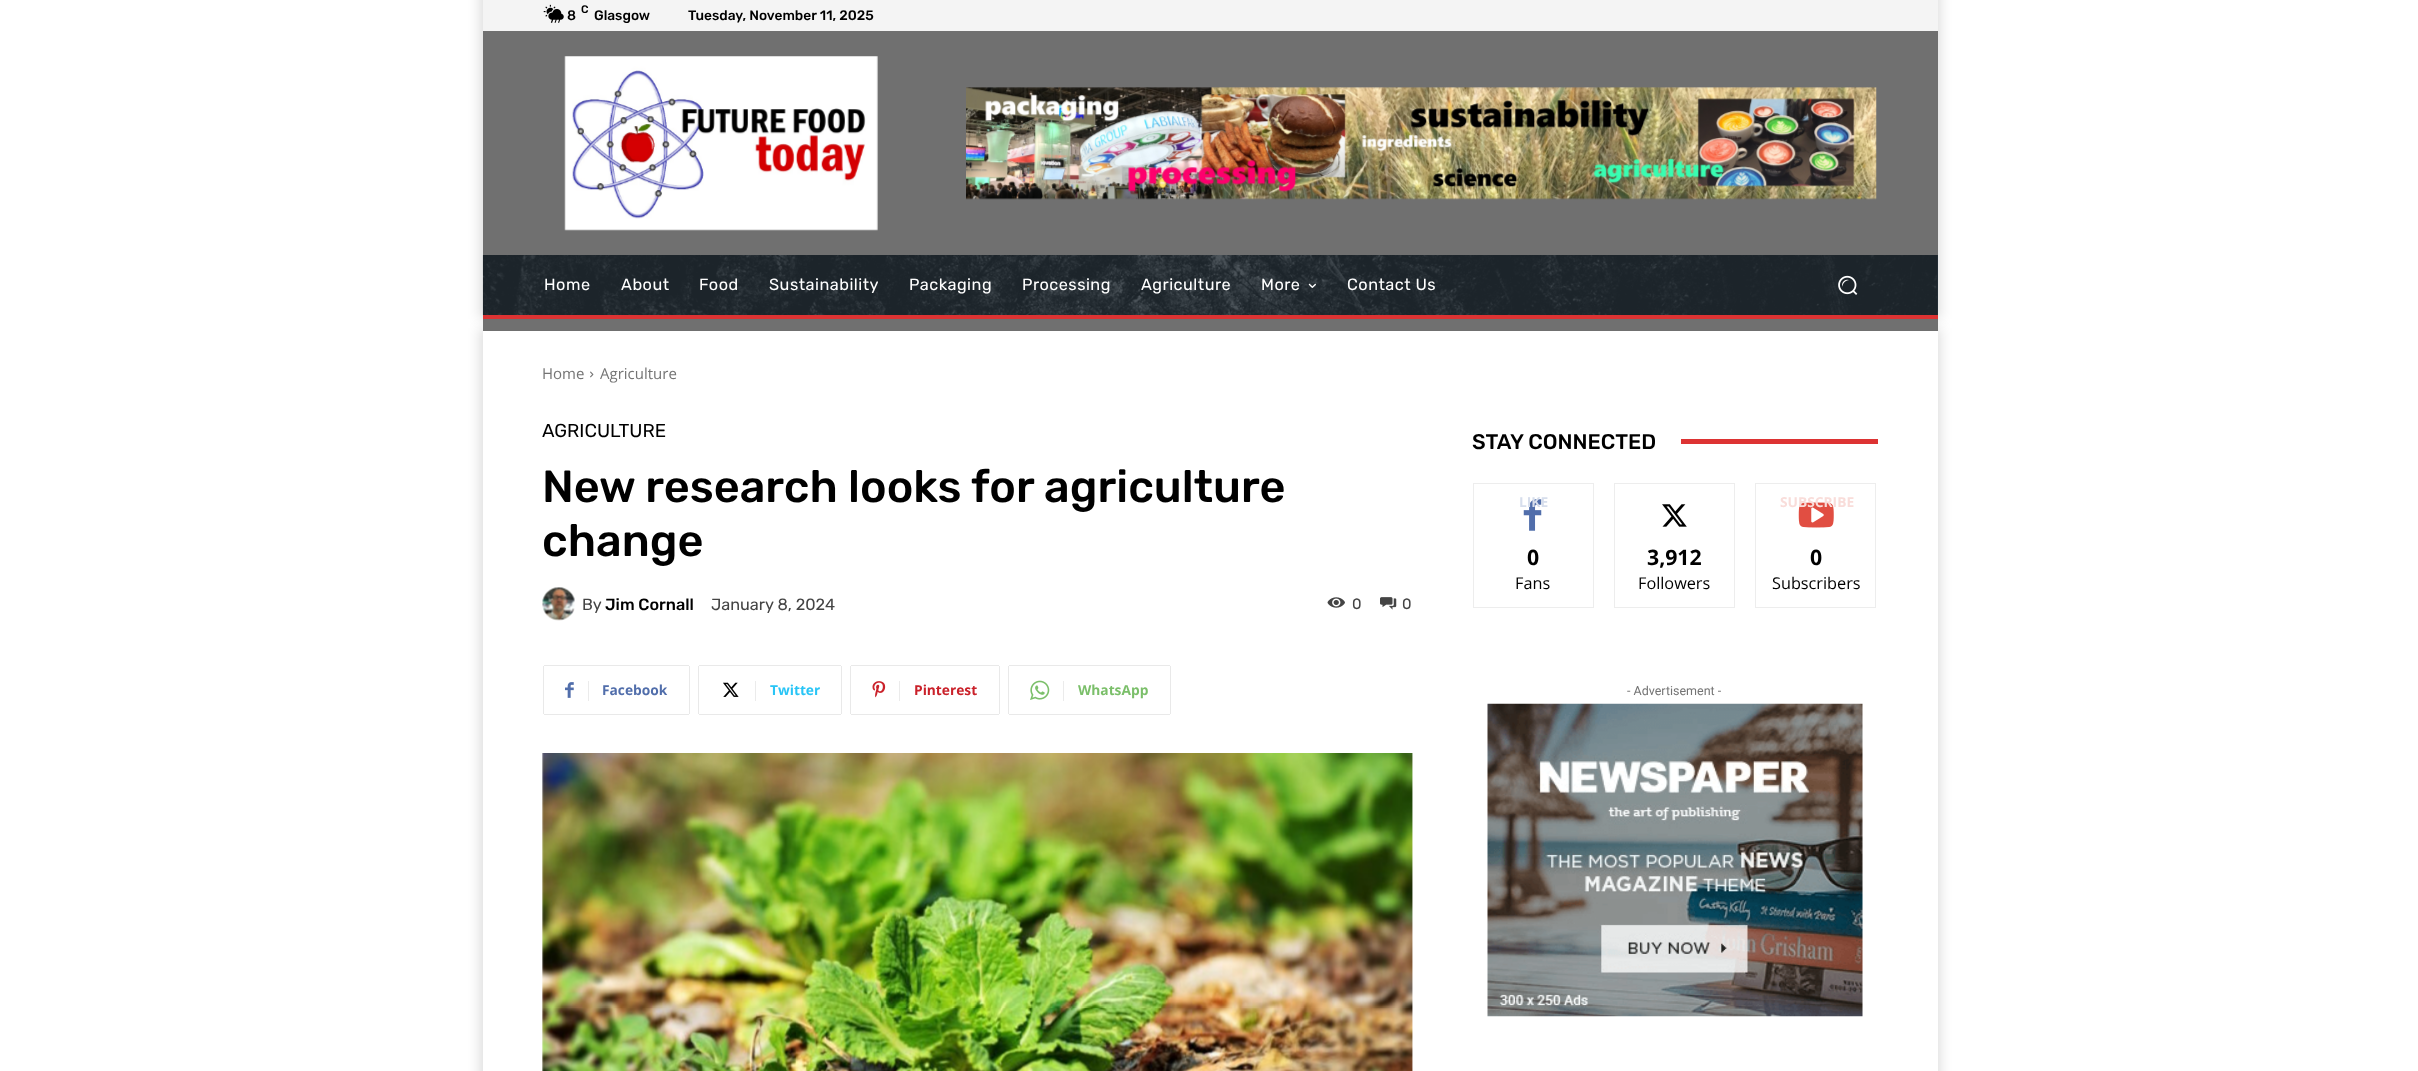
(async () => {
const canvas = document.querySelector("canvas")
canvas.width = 2418
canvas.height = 1071
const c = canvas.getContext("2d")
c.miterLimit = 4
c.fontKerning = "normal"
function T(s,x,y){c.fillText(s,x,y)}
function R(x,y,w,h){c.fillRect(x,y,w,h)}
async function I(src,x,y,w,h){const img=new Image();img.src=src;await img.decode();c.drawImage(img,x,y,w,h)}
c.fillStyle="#fff"
R(0,0,2418,1071)
c.fillStyle="#0000001f"
c.filter="blur(6px)"
c.beginPath()
c.rect(479,328,1462,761)
c.fill()
c.filter="none"
c.fillStyle="#fff"
R(483,331,1455,740)
c.fillStyle="#0000001f"
c.filter="blur(6px)"
c.beginPath()
c.rect(479,-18,1462,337)
c.fill()
c.filter="none"
c.fillStyle="#f4f4f4"
R(483,0,1455,31)
await I("1.png",543,4,21,19)
c.font="500 13.75px Rubik"
c.fillStyle="#000"
T("8",567,20)
c.font="500 11px Rubik"
T("C",581,13)
c.font="500 13.75px Rubik"
T("Glasgow",594,20)
T("Tuesday, November 11, 2025",688,20)
c.fillStyle="#707070"
R(483,31,1455,300)
await I("2.png",564,56,314,175)
await I("3.png",966,87,911,113)
c.fillStyle="#232d35"
R(483,255,1455,60)
await I("4.png",482,255,1455,60)
c.letterSpacing="0.5px"
c.font="16.25px Rubik"
c.fillStyle="#fff"
T("Home",544,290)
T("About",621,290)
T("Food",699,290)
T("Sustainability",769,290)
T("Packaging",909,290)
T("Processing",1022,290)
T("Agriculture",1141,290)
T("More",1261,290)
await I("5.png",1308,283,8,5)
T("Contact Us",1347,290)
await I("6.png",1838,275,20,20)
c.fillStyle="#d33"
R(483,315,1455,4)
c.letterSpacing="0px"
c.font="15px Open Sans"
c.fillStyle="#747474"
T("Home",542,379)
await I("7.png",590,371,4,7)
T("Agriculture",600,379)
c.font="18.75px Rubik"
c.fillStyle="#000"
T("AGRICULTURE",542,437)
c.font="500 45px Rubik"
T("New research looks for agriculture",542,502)
T("change",542,556)
await I("8.png",542,587,33,34)
c.font="16.25px Rubik"
c.fillStyle="#444"
T("By",582,610)
c.font="500 16.25px Rubik"
c.fillStyle="#000"
T("Jim Cornall",605,610)
c.font="16.25px Rubik"
c.fillStyle="#444"
T("January 8, 2024",711,610)
await I("9.png",1327,597,18,11)
c.font="15px Rubik"
T("0",1352,609)
await I("10.png",1380,597,17,13)
T("0",1402,609)
c.fillStyle="#e9e9e9"
R(543,666,1,48)
await I("11.png",565,682,9,16)
R(544,665,145,1)
R(689,666,1,48)
R(544,714,145,1)
c.fillStyle="#ebebeb"
R(588,681,1,20)
c.font="bold 13.75px Open Sans"
c.fillStyle="#516eab"
T("Facebook",602,695)
c.fillStyle="#e9e9e9"
R(698,666,1,48)
await I("12.png",723,682,16,15)
R(699,665,142,1)
R(841,666,1,48)
R(699,714,142,1)
c.fillStyle="#ebebeb"
R(755,681,1,20)
c.fillStyle="#29c5f6"
T("Twitter",770,695)
c.fillStyle="#e9e9e9"
R(850,666,1,48)
await I("13.png",872,681,14,17)
R(851,665,148,1)
R(999,666,1,48)
R(851,714,148,1)
c.fillStyle="#ebebeb"
R(899,681,1,20)
c.fillStyle="#ca212a"
T("Pinterest",914,695)
c.fillStyle="#e9e9e9"
R(1008,666,1,48)
await I("14.png",1030,680,20,20)
R(1009,665,161,1)
R(1170,666,1,48)
R(1009,714,161,1)
c.fillStyle="#ebebeb"
R(1063,681,1,20)
c.fillStyle="#7bbf6a"
T("WhatsApp",1078,695)
await I("15.png",542,753,871,318)
c.font="500 21.25px Rubik"
c.fillStyle="#000"
T("STAY CONNECTED",1472,449)
c.fillStyle="#d33"
R(1681,439,197,5)
c.strokeStyle="#ededed"
c.strokeRect(1473.5,483.5,120,124)
await I("16.png",1523,499,19,32)
c.font="bold 13.75px Open Sans"
c.fillStyle="#d7deec"
T("LIKE",1519,507)
c.font="bold 21.25px Open Sans"
c.fillStyle="#000"
T("0",1527,565)
c.font="16.25px Open Sans"
T("Fans",1515,589)
c.strokeRect(1614.5,483.5,120,124)
await I("17.png",1662,504,25,23)
c.font="bold 21.25px Open Sans"
T("3,912",1647,565)
c.font="16.25px Open Sans"
T("Followers",1638,589)
c.strokeRect(1755.5,483.5,120,124)
await I("18.png",1798,502,36,26)
c.font="bold 13.75px Open Sans"
c.fillStyle="#f9ddda"
T("SUBSCRIBE",1780,507)
c.font="bold 21.25px Open Sans"
c.fillStyle="#000"
T("0",1810,565)
c.font="16.25px Open Sans"
T("Subscribers",1772,589)
c.font="12.5px Roboto"
c.fillStyle="#747474"
T("- Advertisement -",1627,695)
await I("19.png",1487,703,376,314)
})()
